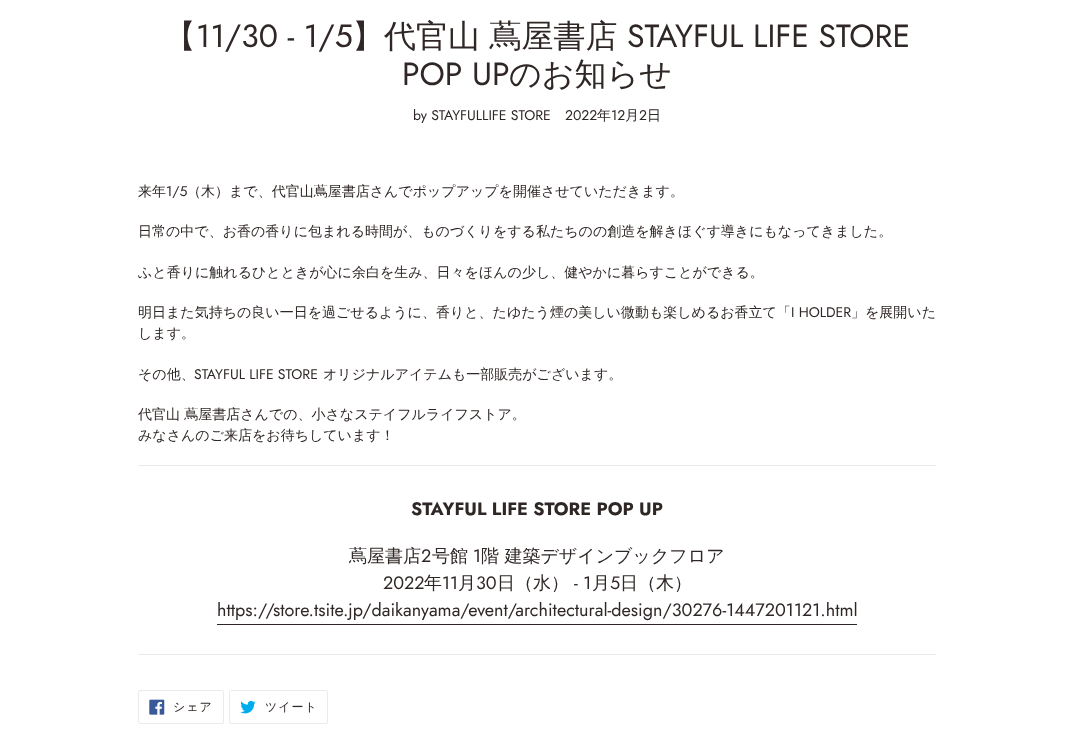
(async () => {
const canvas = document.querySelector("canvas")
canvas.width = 1074
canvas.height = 751
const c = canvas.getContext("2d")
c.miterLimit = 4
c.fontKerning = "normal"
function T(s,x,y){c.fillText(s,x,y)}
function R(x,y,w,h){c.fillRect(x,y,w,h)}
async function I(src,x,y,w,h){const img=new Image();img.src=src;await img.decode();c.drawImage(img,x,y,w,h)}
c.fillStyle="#fff"
R(0,0,1074,751)
c.font="500 32px WenQuanYi Zen Hei"
c.fillStyle="#2f2725"
T("【",164,47)
c.font="32px Jost"
T("11/30 - 1/5",196,47)
c.font="500 32px WenQuanYi Zen Hei"
T("】代官山 蔦屋書店",352,47)
c.font="32px Jost"
T("STAYFUL LIFE STORE",627,47)
T("POP UP",402,85)
c.font="500 32px WenQuanYi Zen Hei"
T("のお知らせ",509,85)
c.font="14px Jost"
T("by STAYFULLIFE STORE",413,120)
T("2022",565,120)
c.font="500 14px WenQuanYi Zen Hei"
T("年",597,120)
c.font="14px Jost"
T("12",611,120)
c.font="500 14px WenQuanYi Zen Hei"
T("月",625,120)
c.font="14px Jost"
T("2",639,120)
c.font="500 14px WenQuanYi Zen Hei"
T("日",647,120)
T("来年",138,196)
c.font="14px Jost"
T("1/5",166,196)
c.font="500 14px WenQuanYi Zen Hei"
T("（木）まで、代官山蔦屋書店さんでポップアップを開催させていただきます。",187,196)
T("日常の中で、お香の香りに包まれる時間が、ものづくりをする私たちのの創造を解きほぐす導きにもなってきました。",138,236)
T("ふと香りに触れるひとときが心に余白を生み、日々をほんの少し、健やかに暮らすことができる。",138,277)
T("明日また気持ちの良い一日を過ごせるように、香りと、たゆたう煙の美しい微動も楽しめるお香立て「",138,317)
c.font="14px Jost"
T("I HOLDER",791,317)
c.font="500 14px WenQuanYi Zen Hei"
T("」を展開いた",851,317)
T("します。",138,338)
T("その他、",138,379)
c.font="14px Jost"
T("STAYFUL LIFE STORE",194,379)
c.font="500 14px WenQuanYi Zen Hei"
T("オリジナルアイテムも一部販売がございます。",323,379)
T("代官山 蔦屋書店さんでの、小さなステイフルライフストア。",138,419)
T("みなさんのご来店をお待ちしています！",138,440)
c.fillStyle="#ebebeb"
R(138,465,798,1)
R(138,654,798,1)
c.font="bold 18px Jost"
c.fillStyle="#2f2725"
T("STAYFUL LIFE STORE POP UP",411,515)
c.font="500 18px WenQuanYi Zen Hei"
T("蔦屋書店",349,562)
c.font="18px Jost"
T("2",421,562)
c.font="500 18px WenQuanYi Zen Hei"
T("号館",432,562)
c.font="18px Jost"
T("1",473,562)
c.font="500 18px WenQuanYi Zen Hei"
T("階 建築デザインブックフロア",481,562)
c.font="18px Jost"
T("2022",383,589)
c.font="500 18px WenQuanYi Zen Hei"
T("年",424,589)
c.font="18px Jost"
T("11",442,589)
c.font="500 18px WenQuanYi Zen Hei"
T("月",458,589)
c.font="18px Jost"
T("30",476,589)
c.font="500 18px WenQuanYi Zen Hei"
T("日（水）",497,589)
c.font="18px Jost"
T("- 1",574,589)
c.font="500 18px WenQuanYi Zen Hei"
T("月",592,589)
c.font="18px Jost"
T("5",610,589)
c.font="500 18px WenQuanYi Zen Hei"
T("日（木）",620,589)
c.font="18px Jost"
T("https://store.tsite.jp/daikanyama/event/architectural-design/30276-1447201121.html",217,616)
R(217,624,640,1)
c.beginPath()
c.roundRect(138.5,690.5,85,33,1.5)
c.strokeStyle="#ebebeb"
c.stroke()
await I("1.png",149,699,16,16)
c.letterSpacing="1px"
c.font="500 12px WenQuanYi Zen Hei"
T("シェア",173,711)
c.beginPath()
c.roundRect(229.5,690.5,98,33,1.5)
c.stroke()
await I("2.png",240,700,16,14)
T("ツイート",265,711)
})()
